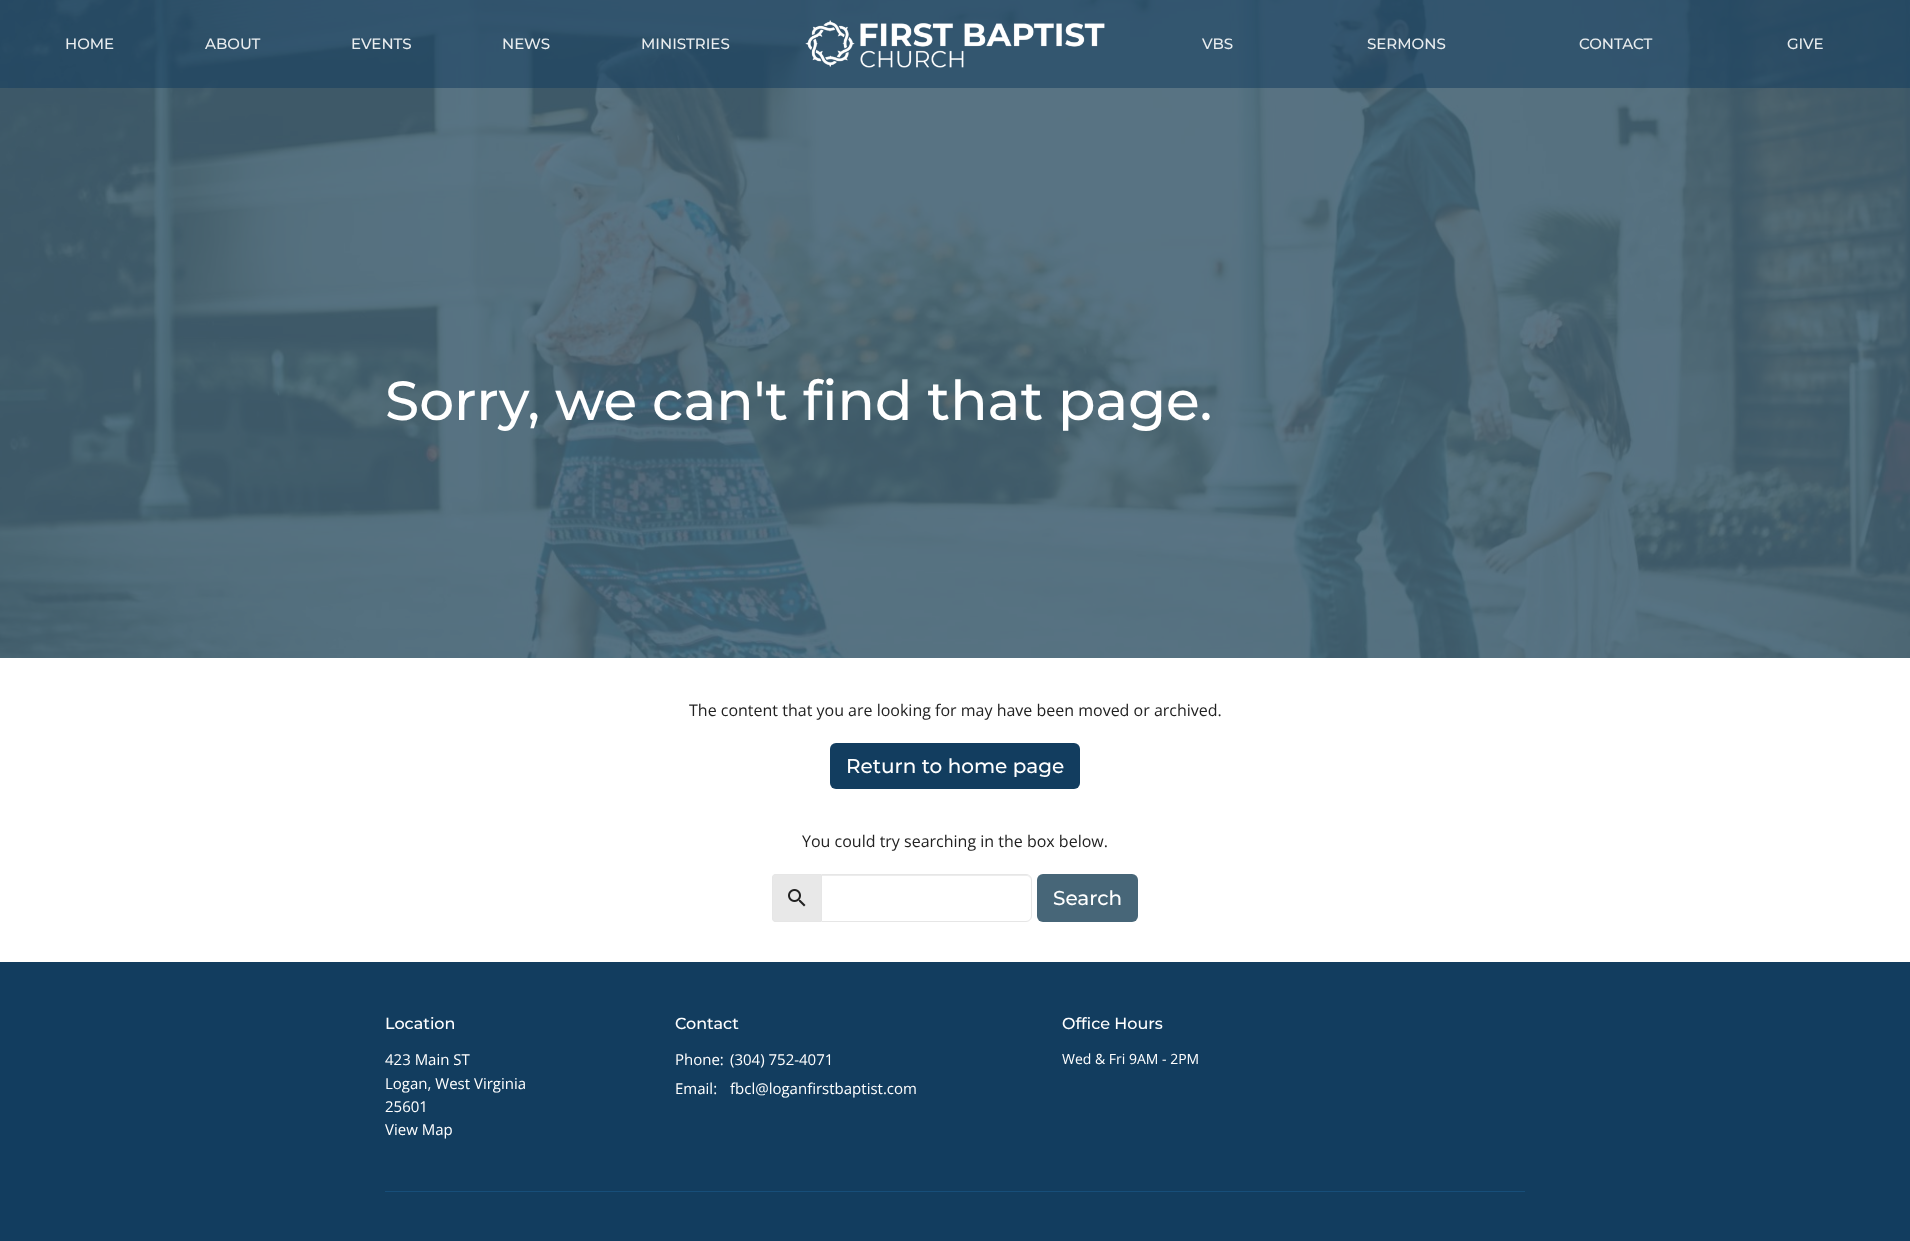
(async () => {
const canvas = document.querySelector("canvas")
canvas.width = 1910
canvas.height = 1241
const c = canvas.getContext("2d")
c.miterLimit = 4
c.fontKerning = "normal"
function T(s,x,y){c.fillText(s,x,y)}
function R(x,y,w,h){c.fillRect(x,y,w,h)}
function Q(x,y,w,h,r){c.beginPath();c.roundRect(x,y,w,h,r);c.fill()}
async function I(src,x,y,w,h){const img=new Image();img.src=src;await img.decode();c.drawImage(img,x,y,w,h)}
let path
c.fillStyle="#fff"
R(0,0,1910,1241)
await I("2.png",0,0,1910,658)
c.fillStyle="#123d5f87"
R(0,0,1910,88)
c.font="500 15px Montserrat"
c.fillStyle="#e9edef"
T("HOME",65,49)
T("ABOUT",205,49)
T("EVENTS",351,49)
T("NEWS",502,49)
T("MINISTRIES",641,49)
await I("1.png",805,20,300,48)
T("VBS",1202,49)
T("SERMONS",1367,49)
T("CONTACT",1579,49)
T("GIVE",1787,49)
c.font="500 55px Montserrat"
c.fillStyle="#fff"
T("Sorry, we can't find that page.",385,420)
c.font="16px Open Sans"
c.fillStyle="#222"
T("The content that you are looking for may have been moved or archived.",689,716)
c.fillStyle="#123d5f"
Q(830,743,250,46,6)
c.font="500 20px Montserrat"
c.fillStyle="#fff"
T("Return to home page",846,773)
c.font="16px Open Sans"
c.fillStyle="#222"
T("You could try searching in the box below.",802,847)
c.fillStyle="#e8e8e8"
c.beginPath()
c.roundRect(772,874,49,48,[4,0,0,4])
c.fill()
c.fillStyle="#e6e6e6"
path = new Path2D("M776 874h45v48h-45c-2 0-4-2-4-4v-40c0-2 2-4 4-4zm0 1h45v46h-45c-2 0-3-1-3-3v-40c0-2 1-3 3-3z")
c.fill(path,"evenodd")
await I("3.png",788,889,18,18)
c.fillStyle="#ececec"
path = new Path2D("M822 876h204c3 0 5 2 5 5c0-3-1-5-4-6h-205z")
c.fill(path)
c.beginPath()
c.roundRect(821.5,874.5,210,47,[0,5.5,5.5,0])
c.strokeStyle="#e6e6e6"
c.stroke()
c.fillStyle="#476678"
Q(1037,874,101,48,6)
c.font="500 20px Montserrat"
c.fillStyle="#fff"
T("Search",1053,905)
c.fillStyle="#123d5f"
R(0,962,1910,279)
c.font="500 16px Montserrat"
c.fillStyle="#fff"
T("Location",385,1029)
c.font="15px Open Sans"
T("423 Main ST",385,1065)
T("Logan, West Virginia",385,1089)
T("25601",385,1112)
T("View Map",385,1135)
c.font="500 16px Montserrat"
T("Contact",675,1029)
c.font="15px Open Sans"
T("Phone:",675,1065)
T("(304) 752-4071",730,1065)
T("Email:",675,1094)
T("fbcl@loganfirstbaptist.com",730,1094)
c.font="500 16px Montserrat"
T("Office Hours",1062,1029)
c.font="14px Open Sans"
T("Wed & Fri 9AM - 2PM",1062,1064)
c.fillStyle="#174e79"
R(385,1191,1140,1)
})()
